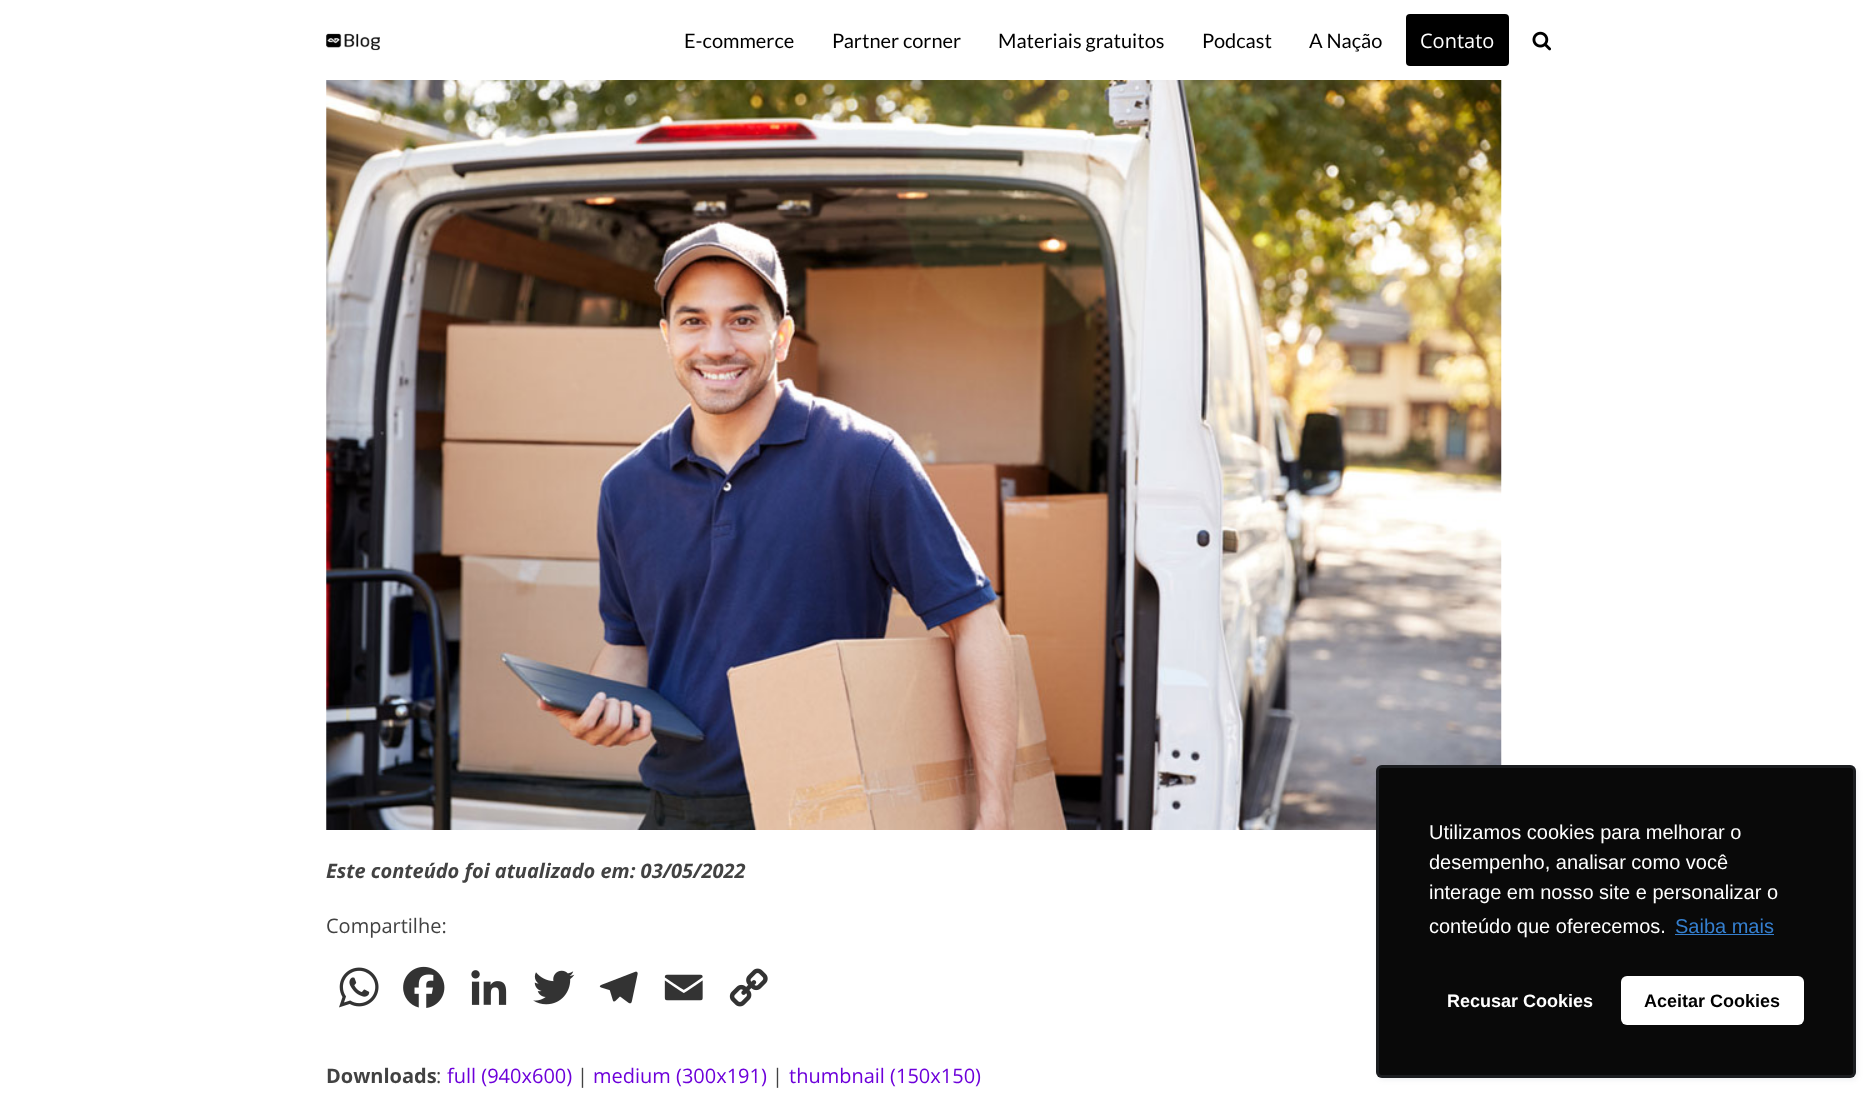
(async () => {
const canvas = document.querySelector("canvas")
canvas.width = 1876
canvas.height = 1097
const c = canvas.getContext("2d")
c.miterLimit = 4
c.fontKerning = "normal"
function T(s,x,y){c.fillText(s,x,y)}
function R(x,y,w,h){c.fillRect(x,y,w,h)}
function Q(x,y,w,h,r){c.beginPath();c.roundRect(x,y,w,h,r);c.fill()}
async function I(src,x,y,w,h){const img=new Image();img.src=src;await img.decode();c.drawImage(img,x,y,w,h)}
c.fillStyle="#fff"
R(0,0,1876,1097)
await I("1.png",326,33,54,18)
c.font="20px Lato"
c.fillStyle="#000"
T("E-commerce",684,48)
T("Partner corner",832,48)
T("Materiais gratuitos",998,48)
T("Podcast",1202,48)
T("A Nação",1309,48)
Q(1406,14,103,52,4)
c.font="20px Open Sans"
c.fillStyle="#fff"
T("Contato",1420,48)
await I("2.png",1532,31,19,20)
await I("3.png",326,80,1176,750)
c.font="italic bold 20px Open Sans"
c.fillStyle="#424242"
T("Este conteúdo foi atualizado em: 03/05/2022",326,878)
c.font="20px Open Sans"
T("Compartilhe:",326,933)
await I("4.png",339,967,40,41)
await I("5.png",403,966,42,42)
await I("6.png",471,970,36,35)
await I("7.png",533,970,42,35)
await I("8.png",599,971,39,33)
await I("9.png",664,974,39,27)
await I("10.png",729,968,39,39)
c.font="bold 20px Open Sans"
T("Downloads",326,1083)
c.font="20px Open Sans"
T(":",436,1083)
c.fillStyle="#6d00da"
T("full (940x600)",447,1083)
c.fillStyle="#424242"
T("|",577,1083)
c.fillStyle="#6d00da"
T("medium (300x191)",593,1083)
c.fillStyle="#424242"
T("|",772,1083)
c.fillStyle="#6d00da"
T("thumbnail (150x150)",789,1083)
c.fillStyle="#636e7c1a"
c.filter="blur(2.5px)"
c.beginPath()
c.roundRect(1378,768,480,312,6)
c.fill()
c.filter="none"
c.fillStyle="#090909"
Q(1376,765,480,313,6)
c.beginPath()
c.roundRect(1377.5,766.5,477,310,4.5)
c.strokeStyle="#636e7c33"
c.lineWidth=3
c.stroke()
c.font="20px Liberation Sans"
c.fillStyle="#fff"
T("Utilizamos cookies para melhorar o",1429,839)
T("desempenho, analisar como você",1429,869)
T("interage em nosso site e personalizar o",1429,899)
T("conteúdo que oferecemos.",1429,933)
c.fillStyle="#357fce"
T("Saiba mais",1675,933)
R(1675,934,99,1)
c.font="bold 18px Liberation Sans"
c.fillStyle="#fff"
T("Recusar Cookies",1447,1007)
Q(1621,976,183,49,6)
c.fillStyle="#000"
T("Aceitar Cookies",1644,1007)
})()
